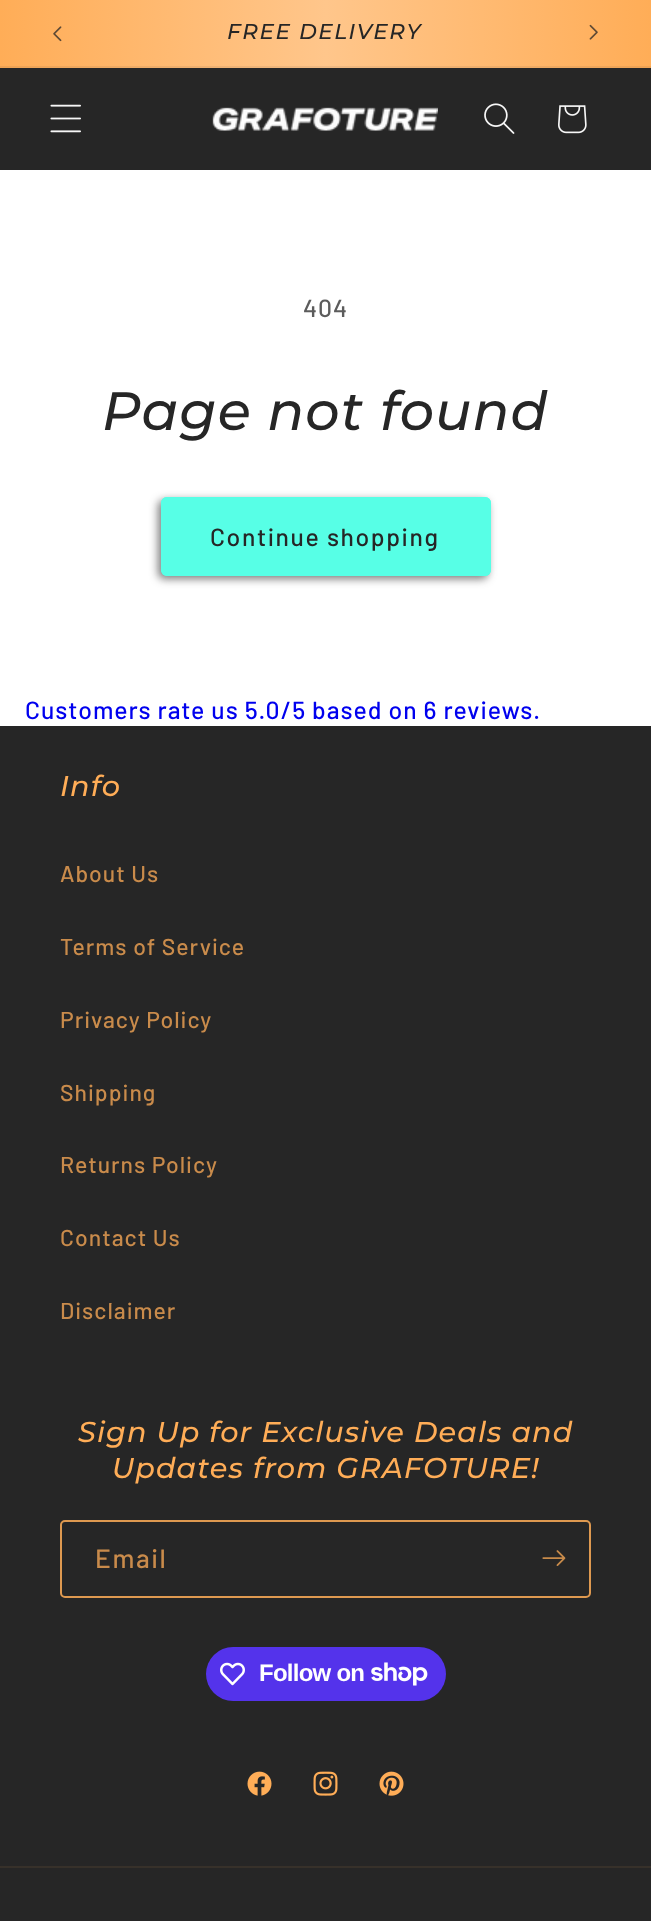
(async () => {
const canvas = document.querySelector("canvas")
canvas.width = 651
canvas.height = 1921
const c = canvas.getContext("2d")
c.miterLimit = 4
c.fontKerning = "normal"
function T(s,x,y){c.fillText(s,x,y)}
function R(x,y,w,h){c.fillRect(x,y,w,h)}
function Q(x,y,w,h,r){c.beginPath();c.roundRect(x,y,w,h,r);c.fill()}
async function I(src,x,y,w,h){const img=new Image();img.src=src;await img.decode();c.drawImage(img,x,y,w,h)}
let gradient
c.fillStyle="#fff"
R(0,0,651,1921)
gradient = c.createLinearGradient(0,961,651,961)
gradient.addColorStop(0,"#ffad57")
gradient.addColorStop(.5,"#ffc68b")
gradient.addColorStop(1,"#ffad57")
c.fillStyle = gradient
R(0,0,651,66)
gradient = c.createLinearGradient(0,961,651,961)
gradient.addColorStop(0,"#eea253")
gradient.addColorStop(.5,"#eeb983")
gradient.addColorStop(1,"#eea253")
c.fillStyle = gradient
R(0,66,651,2)
await I("1.png",53,26,9,16)
c.letterSpacing="1.6px"
c.font="italic 500 21.5px Montserrat"
c.fillStyle="#262626"
T("FREE DELIVERY",227,39)
await I("2.png",589,24,9,16)
R(0,68,651,102)
await I("3.png",50,104,31,29)
await I("4.png",212,107,226,24)
await I("5.png",484,103,31,31)
await I("6.png",558,105,29,29)
c.letterSpacing="1px"
c.font="500 24.75px Barlow"
c.fillStyle="#5c5c5c"
T("404",303,317)
c.letterSpacing="1.1px"
c.font="italic 500 54px Montserrat"
c.fillStyle="#262626"
T("Page not found",102,430)
c.fillStyle="#26262699"
c.filter="blur(4px)"
c.beginPath()
c.roundRect(158,500,330,79,6)
c.fill()
c.filter="none"
c.fillStyle="#57ffe6"
Q(161,497,330,79,6)
c.beginPath()
c.roundRect(162.5,498.5,327,76,4.5)
c.strokeStyle="#57ffe6"
c.lineWidth=3
c.stroke()
c.letterSpacing="1.6px"
c.font="500 24.75px Barlow"
c.fillStyle="#262626"
T("Continue shopping",210,546)
c.letterSpacing="1px"
c.fillStyle="#00e"
T("Customers rate us 5.0/5 based on 6 reviews.",25,719)
c.fillStyle="#262626"
R(0,726,651,1195)
c.letterSpacing="1.1px"
c.font="italic 500 28.75px Montserrat"
c.fillStyle="#ffad57"
T("Info",60,796)
c.letterSpacing="1px"
c.font="500 23px Barlow"
c.fillStyle="#c98b4b"
T("About Us",60,882)
T("Terms of Service",60,955)
T("Privacy Policy",60,1028)
T("Shipping",60,1101)
T("Returns Policy",60,1173)
T("Contact Us",60,1246)
T("Disclaimer",60,1319)
c.letterSpacing="1.1px"
c.font="italic 500 28.75px Montserrat"
c.fillStyle="#ffad57"
T("Sign Up for Exclusive Deals and",78,1442)
T("Updates from GRAFOTURE!",112,1478)
c.beginPath()
c.roundRect(61,1521,529,76,4)
c.strokeStyle="#de9950"
c.lineWidth=2
c.stroke()
c.letterSpacing="1.6px"
c.font="500 26.5px Barlow"
c.fillStyle="#c98b4b"
T("Email",95,1568)
await I("7.png",542,1550,24,16)
c.fillStyle="#5433eb"
Q(206,1647,240,54,27)
await I("8.png",220,1662,25,24)
c.letterSpacing="-0.75px"
c.font="bold 24px Liberation Sans"
c.fillStyle="#fff"
T("Follow on",259,1681)
await I("9.png",371,1662,57,24)
await I("10.png",247,1771,25,25)
await I("11.png",313,1771,25,25)
await I("12.png",379,1771,25,25)
c.fillStyle="#37312a"
R(0,1866,651,2)
})()
